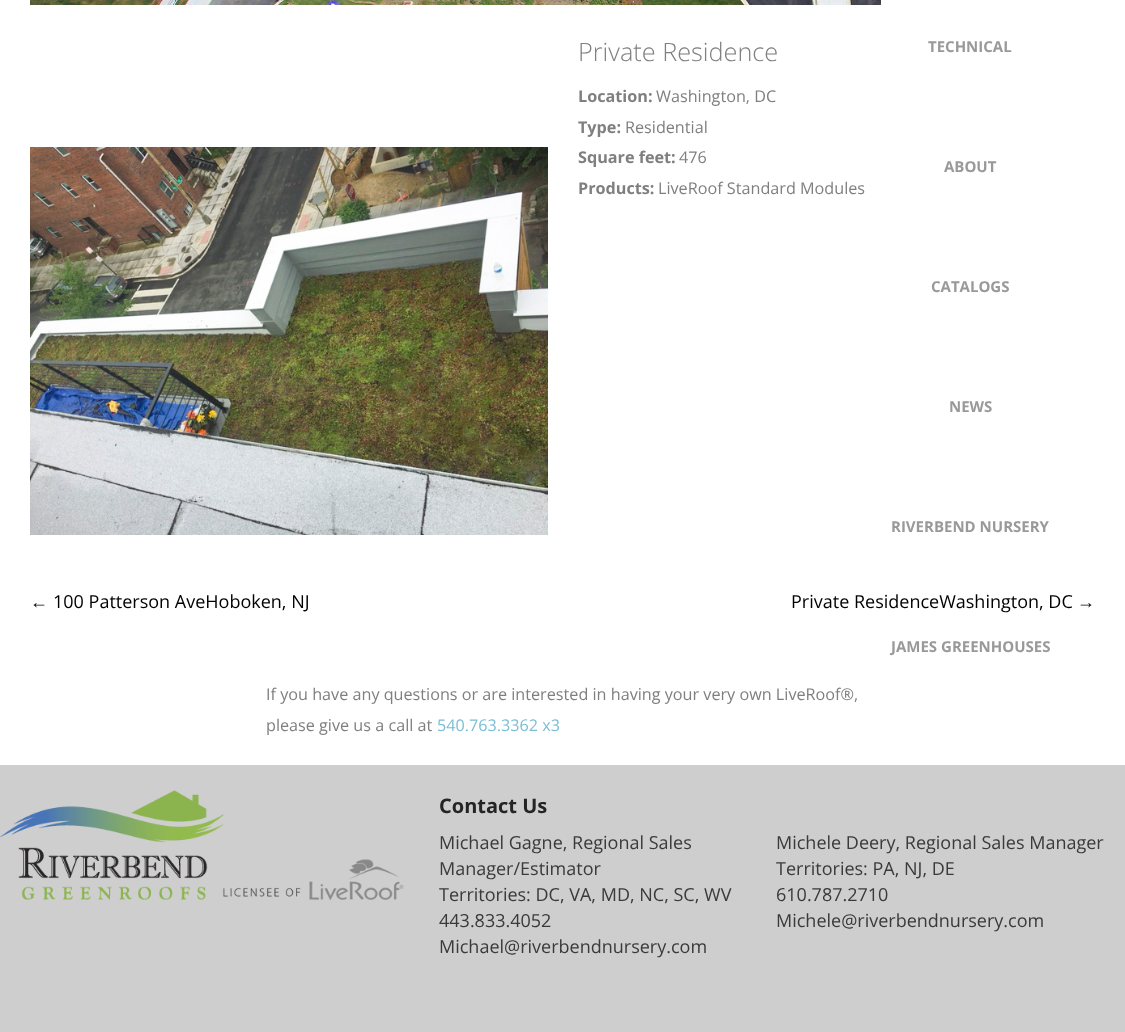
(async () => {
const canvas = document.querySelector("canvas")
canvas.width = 1125
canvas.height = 1032
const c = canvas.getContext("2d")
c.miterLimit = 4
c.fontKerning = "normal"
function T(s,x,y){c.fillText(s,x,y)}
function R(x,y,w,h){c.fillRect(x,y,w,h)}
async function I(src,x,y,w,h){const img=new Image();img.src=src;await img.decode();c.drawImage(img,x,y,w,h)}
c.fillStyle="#fff"
R(0,0,1125,1032)
await I("1.png",30,0,851,5)
c.font="300 25.25px Open Sans"
c.fillStyle="#7f7f7f"
T("Private Residence",578,61)
c.font="bold 16.2px Open Sans"
T("Location:",578,102)
c.font="16.2px Open Sans"
T("Washington, DC",656,102)
c.font="bold 16.2px Open Sans"
T("Type:",578,133)
c.font="16.2px Open Sans"
T("Residential",625,133)
c.font="bold 16.2px Open Sans"
T("Square feet:",578,163)
c.font="16.2px Open Sans"
T("476",679,163)
c.font="bold 16.2px Open Sans"
T("Products:",578,194)
c.font="16.2px Open Sans"
T("LiveRoof Standard Modules",658,194)
await I("2.png",30,147,518,388)
c.font="18px Liberation Sans"
c.fillStyle="#000"
T("←",30,608)
c.font="18px Open Sans"
T("100 Patterson AveHoboken, NJ",53,608)
T("Private ResidenceWashington, DC",791,608)
c.font="18px Liberation Sans"
T("→",1077,608)
c.font="16.2px Open Sans"
c.fillStyle="#7f7f7f"
T("If you have any questions or are interested in having your very own LiveRoof®,",266,700)
T("please give us a call at",266,731)
c.fillStyle="#7abfd3"
T("540.763.3362 x3",437,731)
c.font="bold 15px Open Sans"
c.fillStyle="#999"
T("TECHNICAL",928,52)
T("ABOUT",944,172)
T("CATALOGS",931,292)
T("NEWS",949,412)
T("RIVERBEND NURSERY",891,532)
T("JAMES GREENHOUSES",891,652)
c.fillStyle="#cfcece"
R(0,765,1125,267)
await I("3.png",0,790,404,110)
c.font="bold 20px Open Sans"
c.fillStyle="#242424"
T("Contact Us",439,813)
c.font="18px Open Sans"
c.fillStyle="#3a393b"
T("Michael Gagne, Regional Sales",439,849)
T("Manager/Estimator",439,875)
T("Territories: DC, VA, MD, NC, SC, WV",439,901)
T("443.833.4052",439,927)
T("Michael@riverbendnursery.com",439,953)
T("Michele Deery, Regional Sales Manager",776,849)
T("Territories: PA, NJ, DE",776,875)
T("610.787.2710",776,901)
T("Michele@riverbendnursery.com",776,927)
})()
